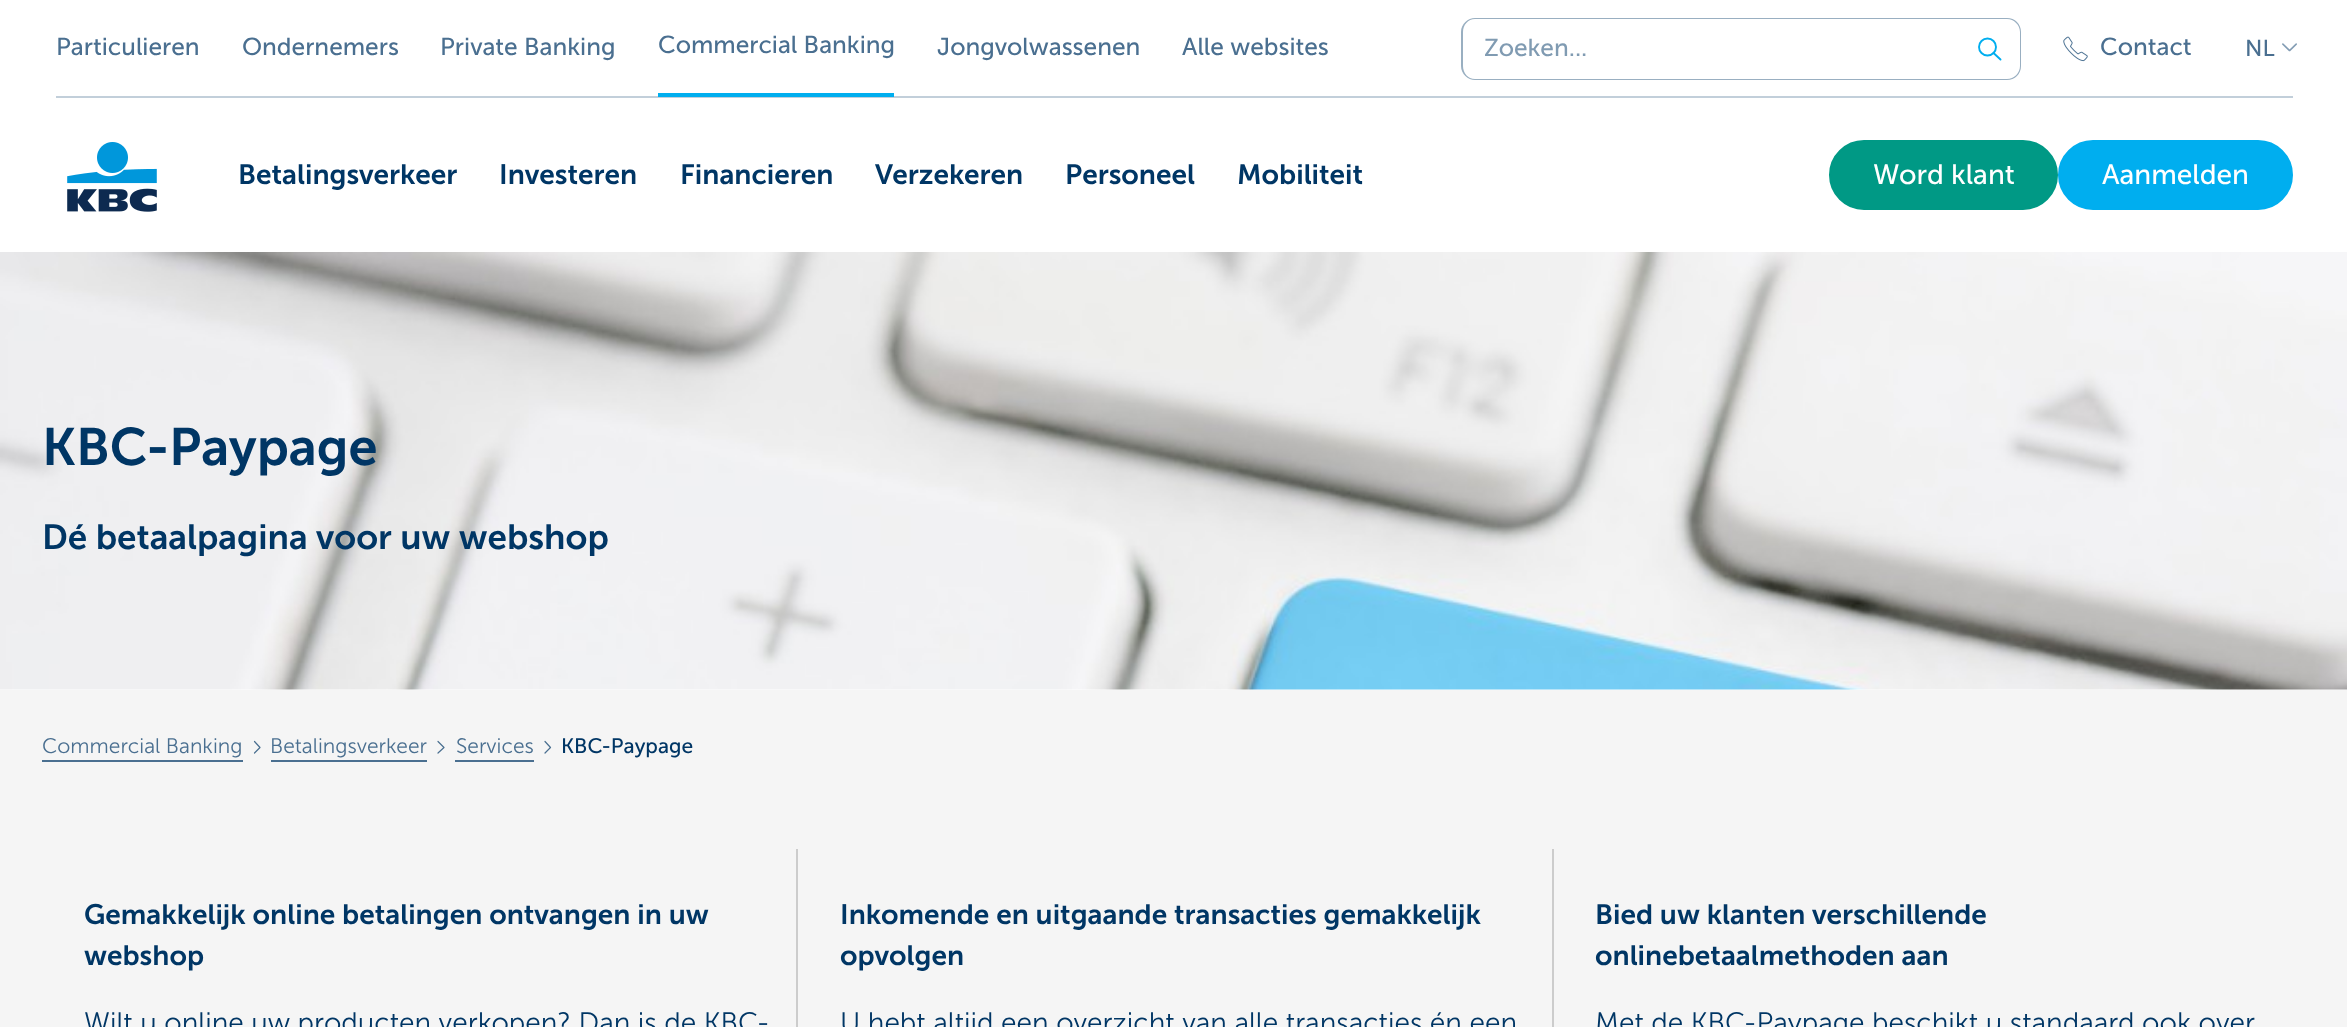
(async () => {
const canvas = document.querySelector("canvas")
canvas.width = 2347
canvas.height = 1027
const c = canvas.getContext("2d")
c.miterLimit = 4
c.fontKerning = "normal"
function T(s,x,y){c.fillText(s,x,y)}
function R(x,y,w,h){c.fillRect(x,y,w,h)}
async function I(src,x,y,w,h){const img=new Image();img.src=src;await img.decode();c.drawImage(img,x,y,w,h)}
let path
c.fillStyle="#fff"
R(0,0,2347,1027)
c.fillStyle="#c2cfda"
R(56,96,2237,2)
c.font="24.5px Museo Sans"
c.fillStyle="#4a6f90"
T("Particulieren",56,55)
T("Ondernemers",242,55)
T("Private Banking",440,55)
c.fillStyle="#00aeef"
R(658,93,236,4)
c.fillStyle="#4a6f90"
T("Commercial Banking",658,53)
T("Jongvolwassenen",937,55)
T("Alle websites",1182,55)
c.fillStyle="#99afc1"
path = new Path2D("M1475 18h483v62h-483c-7 0-14-6-14-14v-34c0-8 7-14 14-14zm0 1h483v60h-483c-7 0-12-6-12-13v-34c0-7 5-13 12-13z")
c.fill(path,"evenodd")
c.fillStyle="#809bb2"
T("Zoeken...",1484,56)
c.fillStyle="#99afc1"
path = new Path2D("M1958 18h49c8 0 14 6 14 14v34c0 8-6 14-14 14h-49zm0 1h49c7 0 13 6 13 13v34c0 7-6 13-13 13h-49z")
c.fill(path,"evenodd")
path = new Path2D("M2000.5 59.5l-7-6.5")
c.strokeStyle="#00aeef"
c.lineWidth=1.9
c.lineCap="round"
c.lineJoin="round"
c.stroke(path)
c.beginPath()
c.arc(1987.5,47,8.5,0,7)
c.stroke()
await I("1.png",2063,36,25,26)
c.fillStyle="#4a6f90"
T("Contact",2100,55)
c.font="23px Museo Sans"
T("NL",2245,56)
await I("2.png",2282,43,15,9)
await I("3.png",67,142,90,70)
c.font="600 28px Museo Sans"
c.fillStyle="#003665"
T("Betalingsverkeer",238,184)
T("Investeren",499,184)
T("Financieren",680,184)
T("Verzekeren",875,184)
T("Personeel",1065,184)
T("Mobiliteit",1237,184)
c.fillStyle="#009985"
c.beginPath()
c.roundRect(1830,141,227,68,34)
c.fill()
c.strokeStyle="#009985"
c.lineWidth=2
c.lineJoin="miter"
c.stroke()
c.font="28px Museo Sans"
c.fillStyle="#fff"
T("Word klant",1873,184)
c.fillStyle="#00aeef"
c.beginPath()
c.roundRect(2059,141,233,68,34)
c.fill()
c.strokeStyle="#00aeef"
c.stroke()
c.fillStyle="#fff"
T("Aanmelden",2102,184)
await I("4.png",0,252,2347,438)
c.font="600 52.5px Museo Sans"
c.fillStyle="#003665"
T("KBC-Paypage",42,465)
c.font="600 35px Museo Sans"
T("Dé betaalpagina voor uw webshop",42,549)
c.fillStyle="#f5f5f5"
R(0,690,2347,337)
c.fillStyle="#4a6f90"
R(42,760,201,2)
c.font="300 21px Museo Sans"
T("Commercial Banking",42,753)
path = new Path2D("M254.5 753l5.5-5.5l-5.5-6")
c.strokeStyle="#4a6f90"
c.lineWidth=1.2
c.lineJoin="round"
c.stroke(path)
R(271,760,156,2)
T("Betalingsverkeer",270,753)
path = new Path2D("M438 753l6-5.5l-6-6")
c.stroke(path)
R(455,760,79,2)
T("Services",456,753)
path = new Path2D("M545 753l5.5-5.5l-5.5-6")
c.stroke(path)
c.font="21px Museo Sans"
c.fillStyle="#003665"
T("KBC-Paypage",561,753)
c.font="600 28px Museo Sans"
T("Gemakkelijk online betalingen ontvangen in uw",84,924)
T("webshop",84,965)
c.font="300 28px Museo Sans"
T("Wilt u online uw producten verkopen? Dan is de KBC-",84,1032)
c.fillStyle="#ccc"
R(796,849,2,178)
c.font="600 28px Museo Sans"
c.fillStyle="#003665"
T("Inkomende en uitgaande transacties gemakkelijk",840,924)
T("opvolgen",840,965)
c.font="300 28px Museo Sans"
T("U hebt altijd een overzicht van alle transacties én een",840,1032)
c.fillStyle="#ccc"
R(1552,849,2,178)
c.font="600 28px Museo Sans"
c.fillStyle="#003665"
T("Bied uw klanten verschillende",1595,924)
T("onlinebetaalmethoden aan",1595,965)
c.font="300 28px Museo Sans"
T("Met de KBC-Paypage beschikt u standaard ook over",1595,1032)
})()
